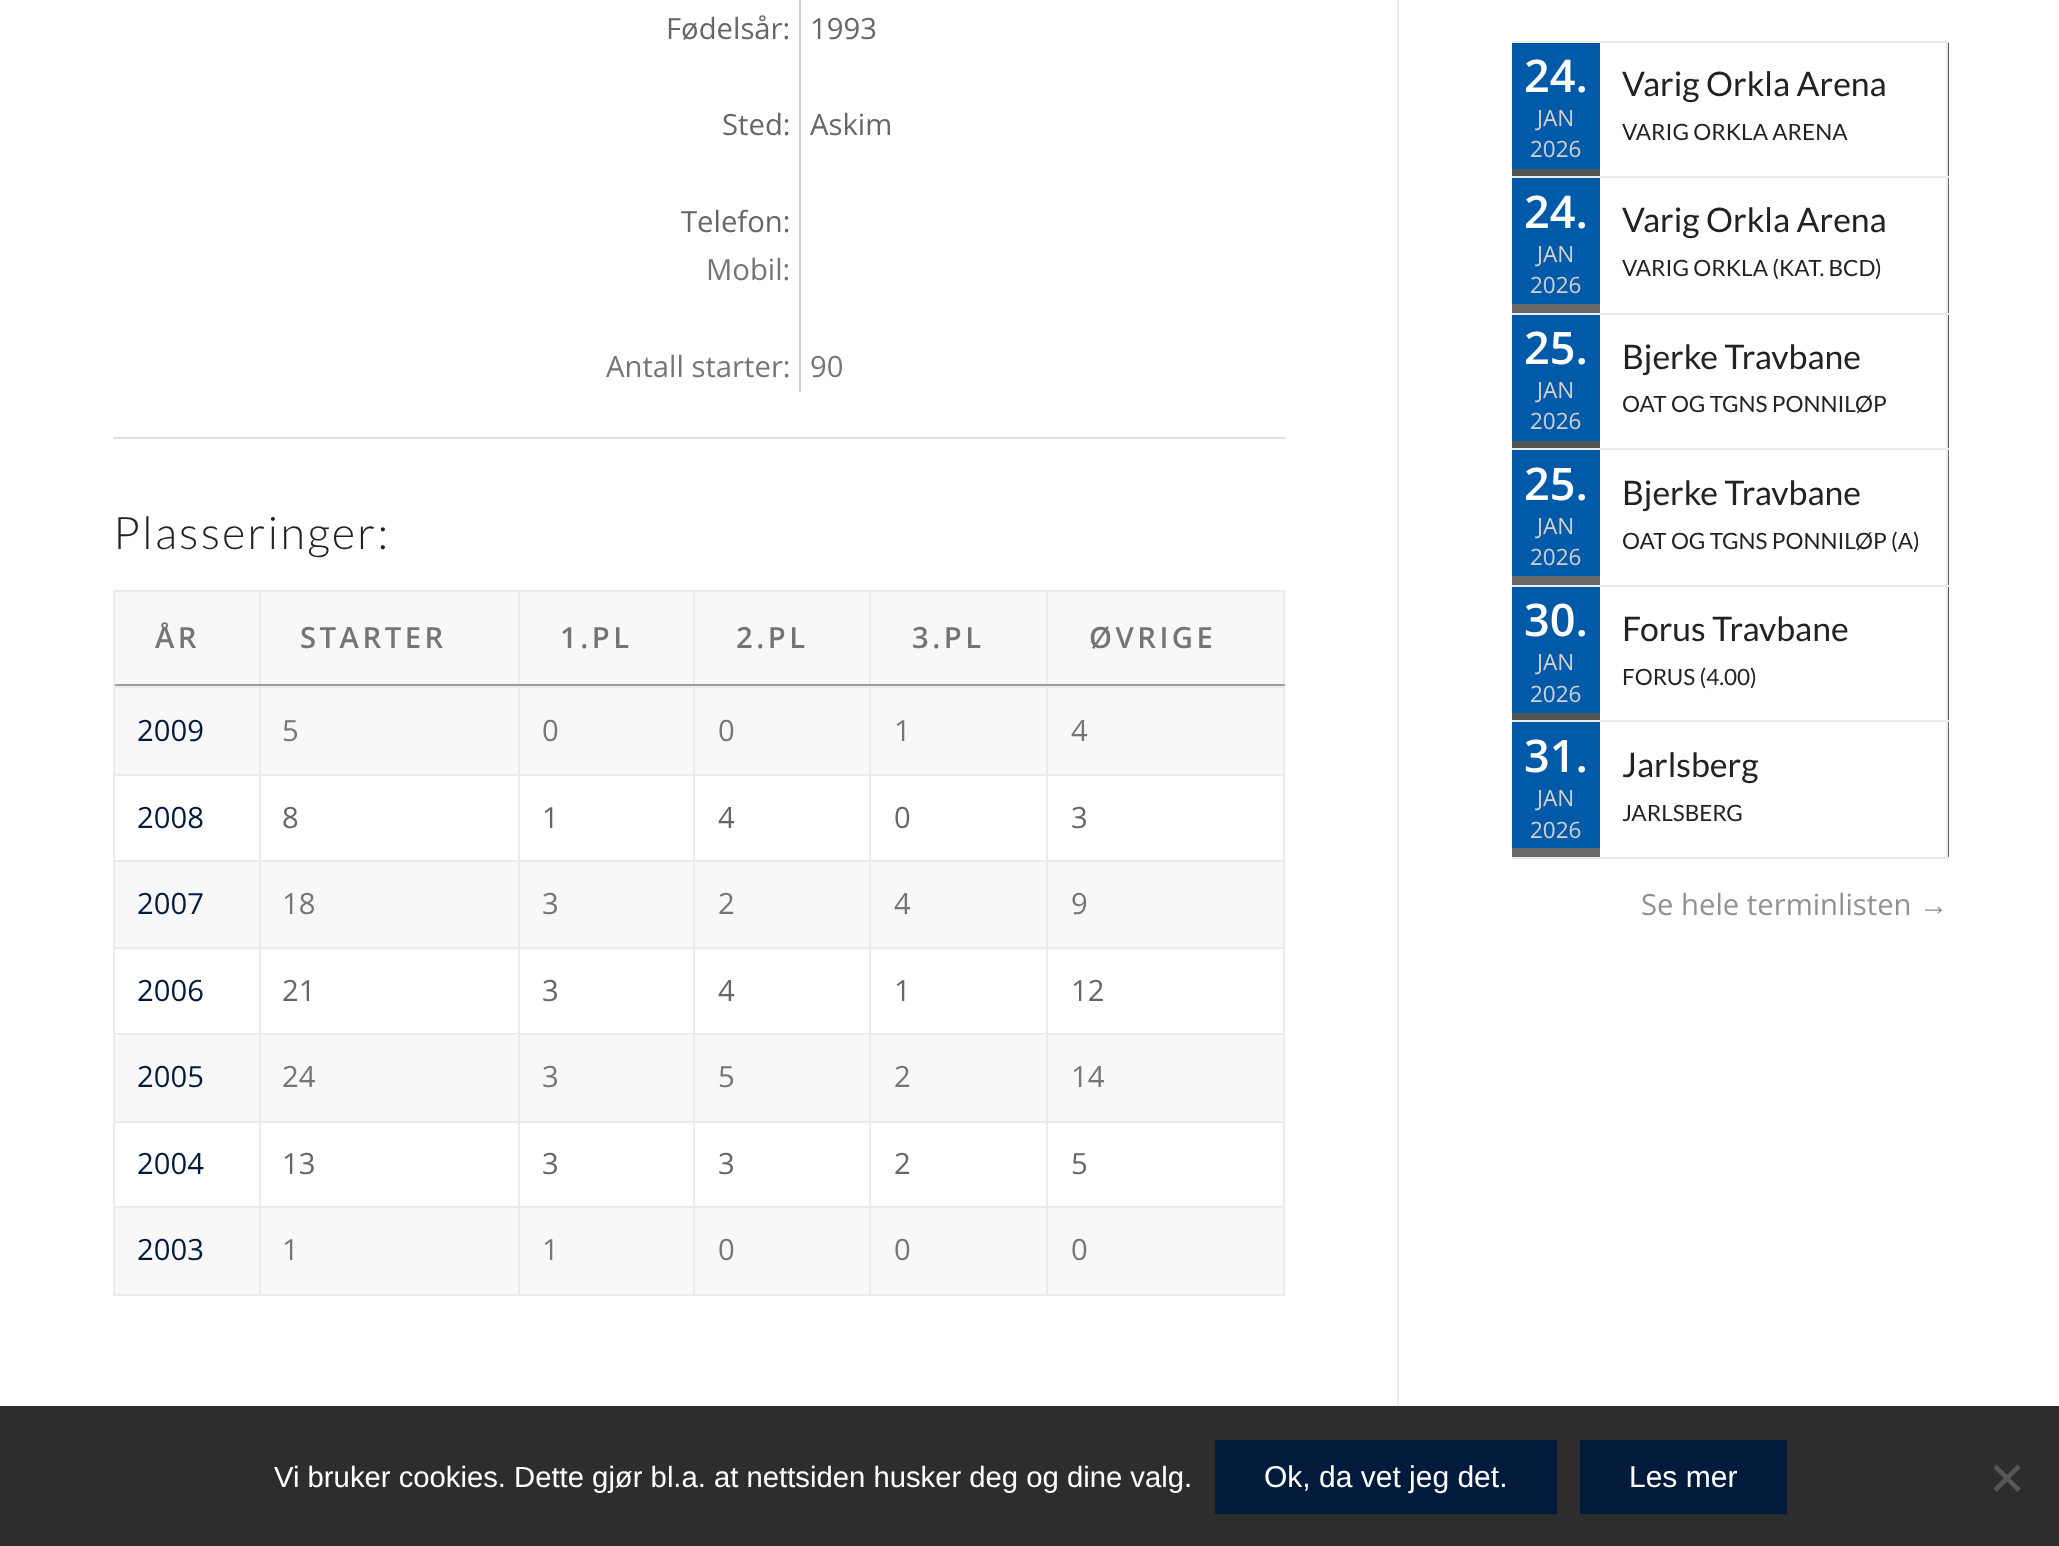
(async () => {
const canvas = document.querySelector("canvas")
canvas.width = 2059
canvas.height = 1546
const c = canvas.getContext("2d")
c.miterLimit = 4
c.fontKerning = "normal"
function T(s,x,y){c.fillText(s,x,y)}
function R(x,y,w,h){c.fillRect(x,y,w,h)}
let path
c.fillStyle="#fff"
R(0,0,2059,1546)
c.fillStyle="#ebebeb"
R(1397,0,2,1409)
c.font="29.25px Open Sans"
c.fillStyle="#666"
T("Fødelsår:",666,39)
T("1993",810,39)
T("Sted:",722,135)
T("Askim",810,135)
T("Telefon:",681,232)
c.fillStyle="#757575"
T("Mobil:",706,280)
c.fillStyle="#ccc"
R(799,0,2,392)
c.fillStyle="#757575"
T("Antall starter:",606,377)
T("90",810,377)
c.fillStyle="#ddd"
R(113,437,1172,2)
c.letterSpacing="2.25px"
c.font="300 45px Lato"
c.fillStyle="#222"
T("Plasseringer:",113,549)
c.fillStyle="#f8f8f8"
R(115,592,1168,702)
c.fillStyle="#ebebeb"
R(113,590,1172,2)
R(259,590,2,96)
c.fillStyle="#9d9d9e"
R(113,684,148,2)
c.fillStyle="#ebebeb"
R(113,590,2,96)
c.letterSpacing="3.5px"
c.font="600 29.25px Open Sans"
c.fillStyle="#757575"
T("ÅR",155,648)
c.fillStyle="#ebebeb"
R(518,590,2,96)
c.fillStyle="#9d9d9e"
R(261,684,259,2)
c.fillStyle="#757575"
T("STARTER",300,648)
c.fillStyle="#ebebeb"
R(693,590,2,96)
c.fillStyle="#9d9d9e"
R(520,684,175,2)
c.fillStyle="#757575"
T("1.PL",560,648)
c.fillStyle="#ebebeb"
R(869,590,2,96)
c.fillStyle="#9d9d9e"
R(695,684,176,2)
c.fillStyle="#757575"
T("2.PL",736,648)
c.fillStyle="#ebebeb"
R(1046,590,2,96)
c.fillStyle="#9d9d9e"
R(871,684,178,2)
c.fillStyle="#757575"
T("3.PL",912,648)
c.fillStyle="#ebebeb"
R(1283,590,2,96)
c.fillStyle="#9d9d9e"
R(1049,684,236,2)
c.fillStyle="#757575"
T("ØVRIGE",1089,648)
c.strokeStyle="#ebebeb"
c.lineWidth=2
c.strokeRect(114,687,146,88)
c.letterSpacing="0px"
c.font="29.25px Open Sans"
c.fillStyle="#021b3d"
T("2009",137,741)
c.fillStyle="#ebebeb"
R(261,686,1024,2)
R(518,686,2,90)
R(261,774,259,2)
c.fillStyle="#757575"
T("5",282,741)
c.fillStyle="#ebebeb"
R(693,686,2,90)
R(520,774,175,2)
c.fillStyle="#757575"
T("0",542,741)
c.fillStyle="#ebebeb"
R(869,686,2,90)
R(695,774,176,2)
c.fillStyle="#757575"
T("0",718,741)
c.fillStyle="#ebebeb"
R(1046,686,2,90)
R(871,774,178,2)
c.fillStyle="#757575"
T("1",894,741)
c.fillStyle="#ebebeb"
R(1283,686,2,610)
R(1049,774,236,2)
c.fillStyle="#757575"
T("4",1071,741)
c.fillStyle="#fff"
R(115,776,1168,84)
c.fillStyle="#ebebeb"
R(259,776,2,174)
R(113,860,148,2)
R(113,776,2,86)
c.fillStyle="#021b3d"
T("2008",137,828)
c.fillStyle="#ebebeb"
R(518,776,2,174)
R(261,860,259,2)
c.fillStyle="#666"
T("8",282,828)
c.fillStyle="#ebebeb"
R(693,776,2,174)
R(520,860,175,2)
c.fillStyle="#666"
T("1",542,828)
c.fillStyle="#ebebeb"
R(869,776,2,174)
R(695,860,176,2)
c.fillStyle="#666"
T("4",718,828)
c.fillStyle="#ebebeb"
R(1046,776,2,174)
R(871,860,414,2)
c.fillStyle="#666"
T("0",894,828)
T("3",1071,828)
c.fillStyle="#ebebeb"
R(113,947,1172,2)
R(113,862,2,88)
c.fillStyle="#021b3d"
T("2007",137,914)
c.fillStyle="#757575"
T("18",282,914)
T("3",542,914)
T("2",718,914)
T("4",894,914)
T("9",1071,914)
c.fillStyle="#fff"
R(115,950,1168,83)
c.fillStyle="#ebebeb"
R(259,950,2,173)
R(113,1033,148,2)
R(113,950,2,85)
c.fillStyle="#021b3d"
T("2006",137,1001)
c.fillStyle="#ebebeb"
R(518,950,2,173)
R(261,1033,259,2)
c.fillStyle="#666"
T("21",282,1001)
c.fillStyle="#ebebeb"
R(693,950,2,173)
R(520,1033,175,2)
c.fillStyle="#666"
T("3",542,1001)
c.fillStyle="#ebebeb"
R(869,950,2,173)
R(695,1033,176,2)
c.fillStyle="#666"
T("4",718,1001)
c.fillStyle="#ebebeb"
R(1046,950,2,173)
R(871,1033,414,2)
c.fillStyle="#666"
T("1",894,1001)
T("12",1071,1001)
c.fillStyle="#ebebeb"
R(113,1121,1172,2)
R(113,1035,2,88)
c.fillStyle="#021b3d"
T("2005",137,1087)
c.fillStyle="#757575"
T("24",282,1087)
T("3",542,1087)
T("5",718,1087)
T("2",894,1087)
T("14",1071,1087)
c.fillStyle="#fff"
R(115,1123,1168,83)
c.fillStyle="#ebebeb"
R(259,1123,2,173)
R(113,1206,148,2)
R(113,1123,2,85)
c.fillStyle="#021b3d"
T("2004",137,1174)
c.fillStyle="#ebebeb"
R(518,1123,2,173)
R(261,1206,259,2)
c.fillStyle="#666"
T("13",282,1174)
c.fillStyle="#ebebeb"
R(693,1123,2,173)
R(520,1206,175,2)
c.fillStyle="#666"
T("3",542,1174)
c.fillStyle="#ebebeb"
R(869,1123,2,173)
R(695,1206,176,2)
c.fillStyle="#666"
T("3",718,1174)
c.fillStyle="#ebebeb"
R(1046,1123,2,173)
R(871,1206,414,2)
c.fillStyle="#666"
T("2",894,1174)
T("5",1071,1174)
c.fillStyle="#ebebeb"
R(113,1294,1172,2)
R(113,1208,2,88)
c.fillStyle="#021b3d"
T("2003",137,1260)
c.fillStyle="#757575"
T("1",282,1260)
T("1",542,1260)
T("0",718,1260)
T("0",894,1260)
T("0",1071,1260)
c.fillStyle="#e9e9e9"
R(1512,857,437,2)
c.fillStyle="#545454"
R(1512,43,437,133)
c.fillStyle="#ebebeb"
R(1512,41,437,2)
R(1946,41,2,135)
c.fillStyle="#015aa8"
R(1512,43,88,126)
c.font="600 45px Open Sans"
c.fillStyle="#fff"
T("24.",1524,92)
c.font="22.5px Open Sans"
c.fillStyle="#d1d1d1"
T("JAN",1537,126)
T("2026",1530,157)
c.fillStyle="#fff"
R(1600,43,346,133)
c.font="33.75px Lato"
c.fillStyle="#222"
T("Varig Orkla Arena",1622,96)
c.font="22.5px Lato"
T("VARIG ORKLA ARENA",1622,140)
c.fillStyle="#696767"
R(1512,178,437,135)
c.fillStyle="#ebebeb"
R(1512,176,437,2)
R(1946,176,2,137)
c.fillStyle="#015aa8"
R(1512,178,88,126)
c.font="600 45px Open Sans"
c.fillStyle="#fff"
T("24.",1524,228)
c.font="22.5px Open Sans"
c.fillStyle="#d1d1d1"
T("JAN",1537,262)
T("2026",1530,293)
c.fillStyle="#fff"
R(1600,178,346,135)
c.font="33.75px Lato"
c.fillStyle="#222"
T("Varig Orkla Arena",1622,232)
c.font="22.5px Lato"
T("VARIG ORKLA (KAT. BCD)",1622,276)
c.fillStyle="#545454"
R(1512,315,437,133)
c.fillStyle="#ebebeb"
R(1512,313,437,2)
R(1946,313,2,135)
c.fillStyle="#015aa8"
R(1512,315,88,126)
c.font="600 45px Open Sans"
c.fillStyle="#fff"
T("25.",1524,364)
c.font="22.5px Open Sans"
c.fillStyle="#d1d1d1"
T("JAN",1537,398)
T("2026",1530,429)
c.fillStyle="#fff"
R(1600,315,346,133)
c.font="33.75px Lato"
c.fillStyle="#222"
T("Bjerke Travbane",1622,369)
c.font="22.5px Lato"
T("OAT OG TGNS PONNILØP",1622,412)
c.fillStyle="#696767"
R(1512,450,437,135)
c.fillStyle="#ebebeb"
R(1512,448,437,2)
R(1946,448,2,137)
c.fillStyle="#015aa8"
R(1512,450,88,126)
c.font="600 45px Open Sans"
c.fillStyle="#fff"
T("25.",1524,500)
c.font="22.5px Open Sans"
c.fillStyle="#d1d1d1"
T("JAN",1537,534)
T("2026",1530,565)
c.fillStyle="#fff"
R(1600,450,346,135)
c.font="33.75px Lato"
c.fillStyle="#222"
T("Bjerke Travbane",1622,505)
c.font="22.5px Lato"
T("OAT OG TGNS PONNILØP (A)",1622,549)
c.fillStyle="#545454"
R(1512,587,437,133)
c.fillStyle="#ebebeb"
R(1512,585,437,2)
R(1946,585,2,135)
c.fillStyle="#015aa8"
R(1512,587,88,126)
c.font="600 45px Open Sans"
c.fillStyle="#fff"
T("30.",1524,636)
c.font="22.5px Open Sans"
c.fillStyle="#d1d1d1"
T("JAN",1537,670)
T("2026",1530,702)
c.fillStyle="#fff"
R(1600,587,346,133)
c.font="33.75px Lato"
c.fillStyle="#222"
T("Forus Travbane",1622,641)
c.font="22.5px Lato"
T("FORUS (4.00)",1622,685)
c.fillStyle="#696767"
R(1512,722,437,135)
c.fillStyle="#ebebeb"
R(1512,720,437,2)
R(1946,720,2,137)
c.fillStyle="#015aa8"
R(1512,722,88,126)
c.font="600 45px Open Sans"
c.fillStyle="#fff"
T("31.",1524,772)
c.font="22.5px Open Sans"
c.fillStyle="#d1d1d1"
T("JAN",1537,806)
T("2026",1530,838)
c.fillStyle="#fff"
R(1600,722,346,135)
c.font="33.75px Lato"
c.fillStyle="#222"
T("Jarlsberg",1622,777)
c.font="22.5px Lato"
T("JARLSBERG",1622,821)
c.font="29.25px Open Sans"
c.fillStyle="#919191"
T("Se hele terminlisten",1641,915)
c.font="29.25px Liberation Sans"
T("→",1919,915)
c.fillStyle="#2d2d2d"
R(0,1406,2059,140)
c.fillStyle="#fff"
T("Vi bruker cookies. Dette gjør bl.a. at nettsiden husker deg og dine valg.",274,1487)
c.fillStyle="#021b3d"
R(1215,1440,342,74)
c.font="30px Liberation Sans"
c.fillStyle="#fff"
T("Ok, da vet jeg det.",1264,1487)
c.fillStyle="#021b3d"
R(1580,1440,207,74)
c.fillStyle="#fff"
T("Les mer",1629,1487)
c.fillStyle="#575757"
path = new Path2D("M2017.5 1464.5l3 3.5l-24 24l-3-3.5z")
c.fill(path)
path = new Path2D("M1993.5 1468l3-3.5l24 24l-3 3.5z")
c.fill(path)
})()
